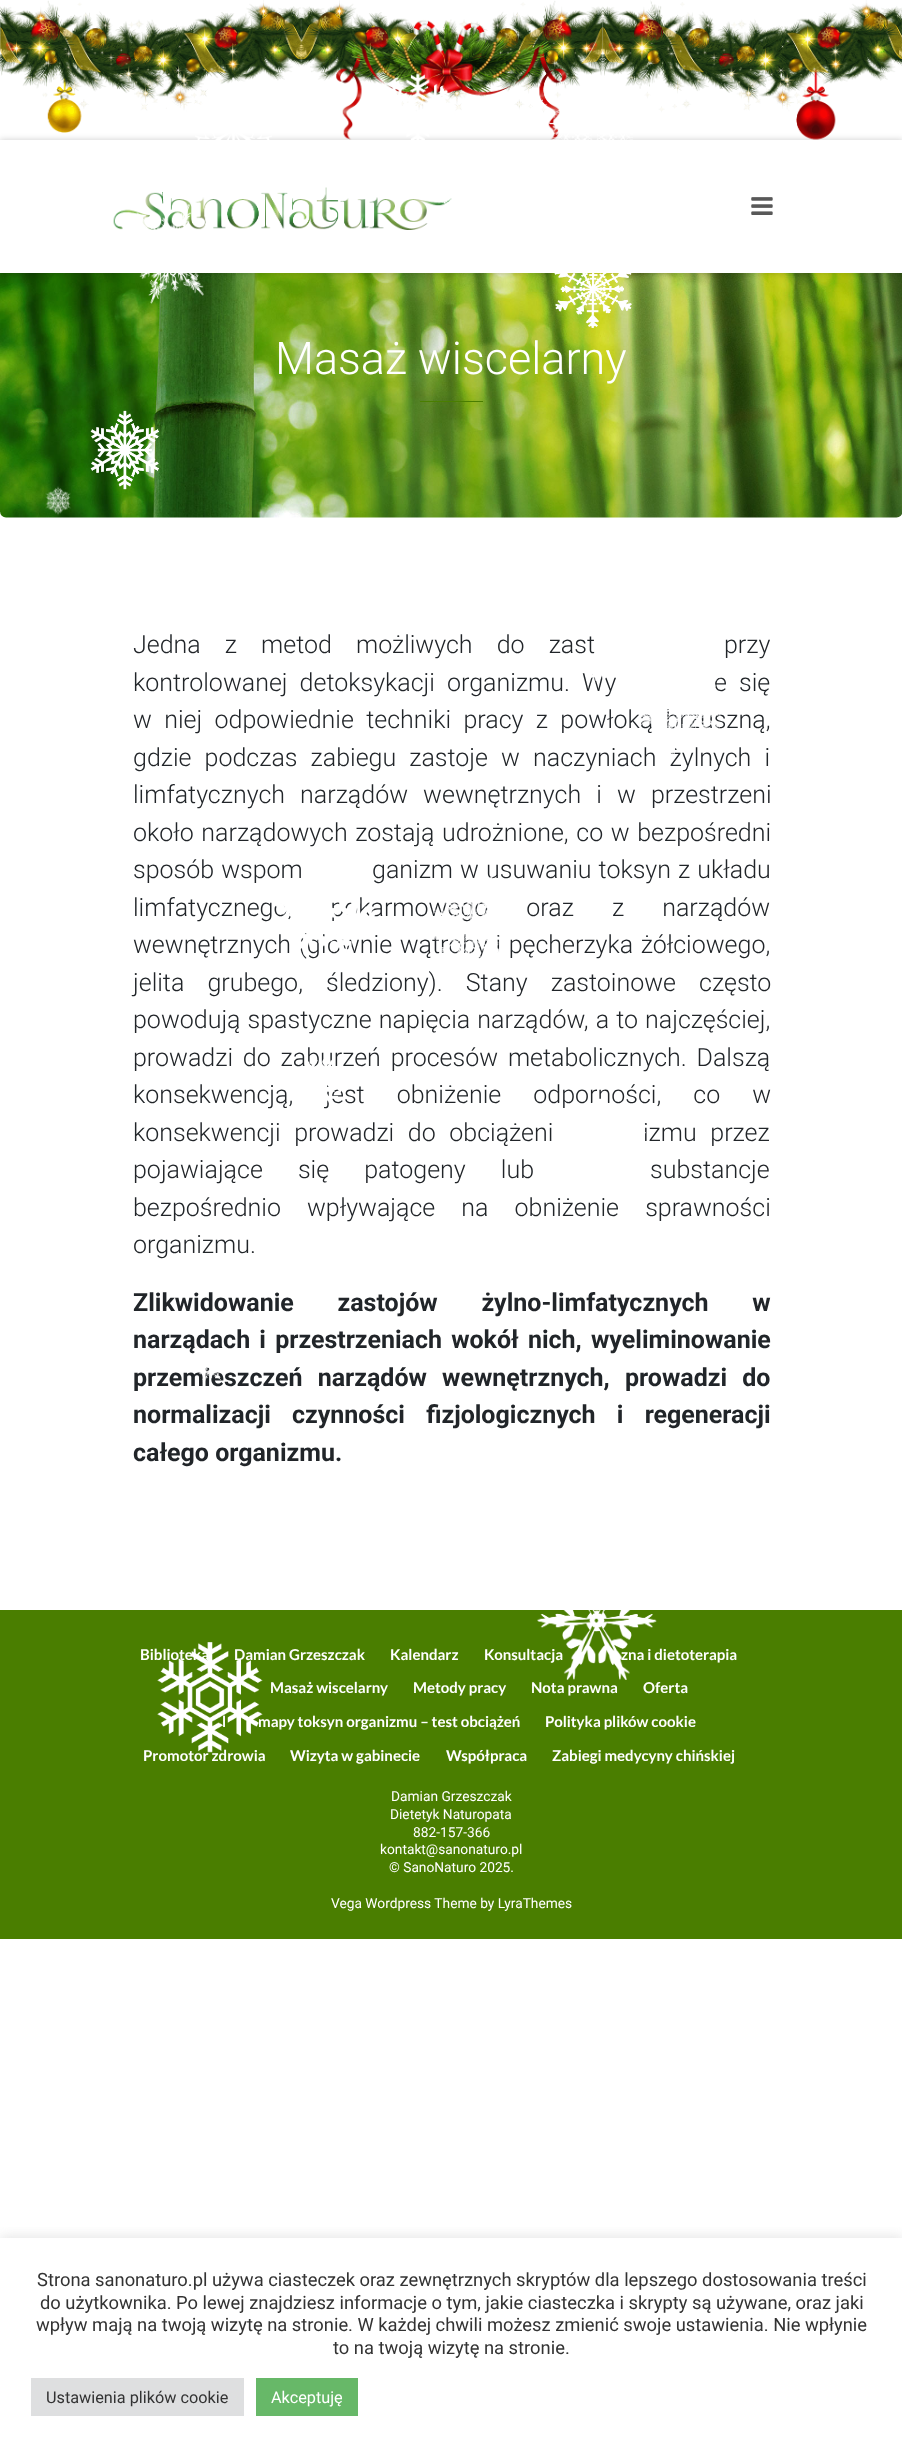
(async () => {
const canvas = document.querySelector("canvas")
canvas.width = 902
canvas.height = 2453
const c = canvas.getContext("2d")
c.miterLimit = 4
c.fontKerning = "normal"
function T(s,x,y){c.fillText(s,x,y)}
function R(x,y,w,h){c.fillRect(x,y,w,h)}
async function I(src,x,y,w,h){const img=new Image();img.src=src;await img.decode();c.drawImage(img,x,y,w,h)}
c.fillStyle="#fff"
R(0,0,902,2453)
await I("11.png",0,273,902,245)
c.fillStyle="#00000033"
c.filter="blur(3px)"
c.beginPath()
c.rect(0,140,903,133)
c.fill()
c.filter="none"
await I("1.png",0,0,902,140)
await I("2.png",195,77,77,63)
await I("3.png",392,73,58,67)
await I("4.png",530,99,18,12)
await I("5.png",549,109,84,31)
c.fillStyle="#fff"
R(0,140,902,133)
await I("6.png",113,187,339,43)
await I("7.png",751,197,22,18)
await I("8.png",441,198,10,7)
await I("9.png",136,204,68,100)
await I("10.png",554,273,78,55)
c.font="300 45px Roboto"
T("Masaż wiscelarny",275,374)
c.fillStyle="#4a7e00"
R(420,401,63,1)
await I("12.png",90,410,69,80)
await I("13.png",45,486,26,30)
c.wordSpacing="18px"
c.font="300 25px Roboto"
c.fillStyle="#212529"
T("Jedna z metod możliwych do zast",133,653)
T("przy",724,653)
c.wordSpacing="6px"
T("kontrolowanej detoksykacji organizmu. Wy",133,691)
T("e się",714,691)
c.wordSpacing="6.25px"
T("w niej odpowiednie techniki pracy z powłoką brzuszną,",133,728)
c.wordSpacing="7px"
T("gdzie podczas zabiegu zastoje w naczyniach żylnych i",133,766)
c.wordSpacing="9px"
T("limfatycznych narządów wewnętrznych i w przestrzeni",133,803)
c.wordSpacing="1.5px"
T("około narządowych zostają udrożnione, co w bezpośredni",133,841)
c.wordSpacing="1px"
T("sposób wspom",133,878)
T("ganizm w usuwaniu toksyn z układu",372,878)
c.wordSpacing="32px"
T("limfatycznego, pokarmowego oraz z narządów",133,916)
c.wordSpacing="1.5px"
T("wewnętrznych (głównie wątroby i pęcherzyka żółciowego,",133,953)
c.wordSpacing="17px"
T("jelita grubego, śledziony). Stany zastoinowe często",133,991)
c.wordSpacing="1px"
T("powodują spastyczne napięcia narządów, a to najczęściej,",133,1028)
c.wordSpacing="3.75px"
T("prowadzi do zaburzeń procesów metabolicznych. Dalszą",133,1066)
c.wordSpacing="26px"
T("konsekwencją, jest obniżenie odporności, co w",133,1103)
c.wordSpacing="7.5px"
T("konsekwencji prowadzi do obciążeni",133,1141)
T("izmu przez",643,1141)
c.wordSpacing="29px"
T("pojawiające się patogeny lub",133,1178)
T("substancje",650,1178)
c.wordSpacing="20px"
T("bezpośrednio wpływające na obniżenie sprawności",133,1216)
c.wordSpacing="0px"
T("organizmu.",133,1253)
c.wordSpacing="37.5px"
c.font="bold 25px Roboto"
T("Zlikwidowanie zastojów żylno-limfatycznych w",133,1311)
c.wordSpacing="3px"
T("narządach i przestrzeniach wokół nich, wyeliminowanie",133,1348)
c.wordSpacing="9px"
T("przemieszczeń narządów wewnętrznych, prowadzi do",133,1386)
c.wordSpacing="15px"
T("normalizacji czynności fizjologicznych i regeneracji",133,1423)
c.wordSpacing="0px"
T("całego organizmu.",133,1461)
await I("15.png",666,673,57,24)
await I("16.png",633,677,89,78)
await I("14.png",590,639,104,52)
await I("17.png",274,864,102,92)
await I("18.png",423,876,88,83)
await I("19.png",307,1059,35,49)
await I("21.png",571,1160,12,12)
await I("20.png",555,1098,91,102)
await I("22.png",199,1367,22,15)
c.fillStyle="#4a7e00"
R(0,1610,902,329)
c.font="bold 15px Lato"
c.fillStyle="#fff"
T("Biblioteka",140,1660)
T("Damian Grzeszczak",234,1660)
T("l",222,1727)
T("mapy toksyn organizmu – test obciążeń",258,1727)
T("Promotor zdrowia",143,1761)
await I("23.png",157,1642,106,111)
T("Konsultacja",484,1660)
T("zna i dietoterapia",621,1660)
await I("24.png",537,1610,120,70)
T("Kalendarz",390,1660)
T("Masaż wiscelarny",270,1693)
T("Metody pracy",413,1693)
T("Nota prawna",531,1693)
T("Oferta",643,1693)
T("Polityka plików cookie",545,1727)
T("Wizyta w gabinecie",290,1761)
T("Współpraca",446,1761)
T("Zabiegi medycyny chińskiej",552,1761)
c.font="13.75px Roboto"
T("Damian Grzeszczak",391,1801)
T("Dietetyk Naturopata",390,1819)
T("882-157-366",413,1837)
T("kontakt@sanonaturo.pl",380,1854)
T("© SanoNaturo 2025.",389,1872)
T("Vega Wordpress Theme by LyraThemes",331,1908)
c.save()
c.beginPath()
c.rect(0,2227,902,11)
c.clip()
c.fillStyle="#acabab4d"
c.filter="blur(6px)"
c.beginPath()
c.rect(0,2236,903,217)
c.fill()
c.filter="none"
c.restore()
c.font="18.35px Roboto"
c.fillStyle="#333"
T("Strona sanonaturo.pl używa ciasteczek oraz zewnętrznych skryptów dla lepszego dostosowania treści",37,2286)
T("do użytkownika. Po lewej znajdziesz informacje o tym, jakie ciasteczka i skrypty są używane, oraz jaki",40,2309)
T("wpływ mają na twoją wizytę na stronie. W każdej chwili możesz zmienić swoje ustawienia. Nie wpłynie",36,2331)
T("to na twoją wizytę na stronie.",333,2354)
c.fillStyle="#dedfe0"
R(31,2378,213,38)
c.font="16.25px Roboto"
c.fillStyle="#333"
T("Ustawienia plików cookie",46,2403)
c.fillStyle="#67b868"
R(256,2378,102,38)
c.fillStyle="#fff"
T("Akceptuję",271,2403)
})()
